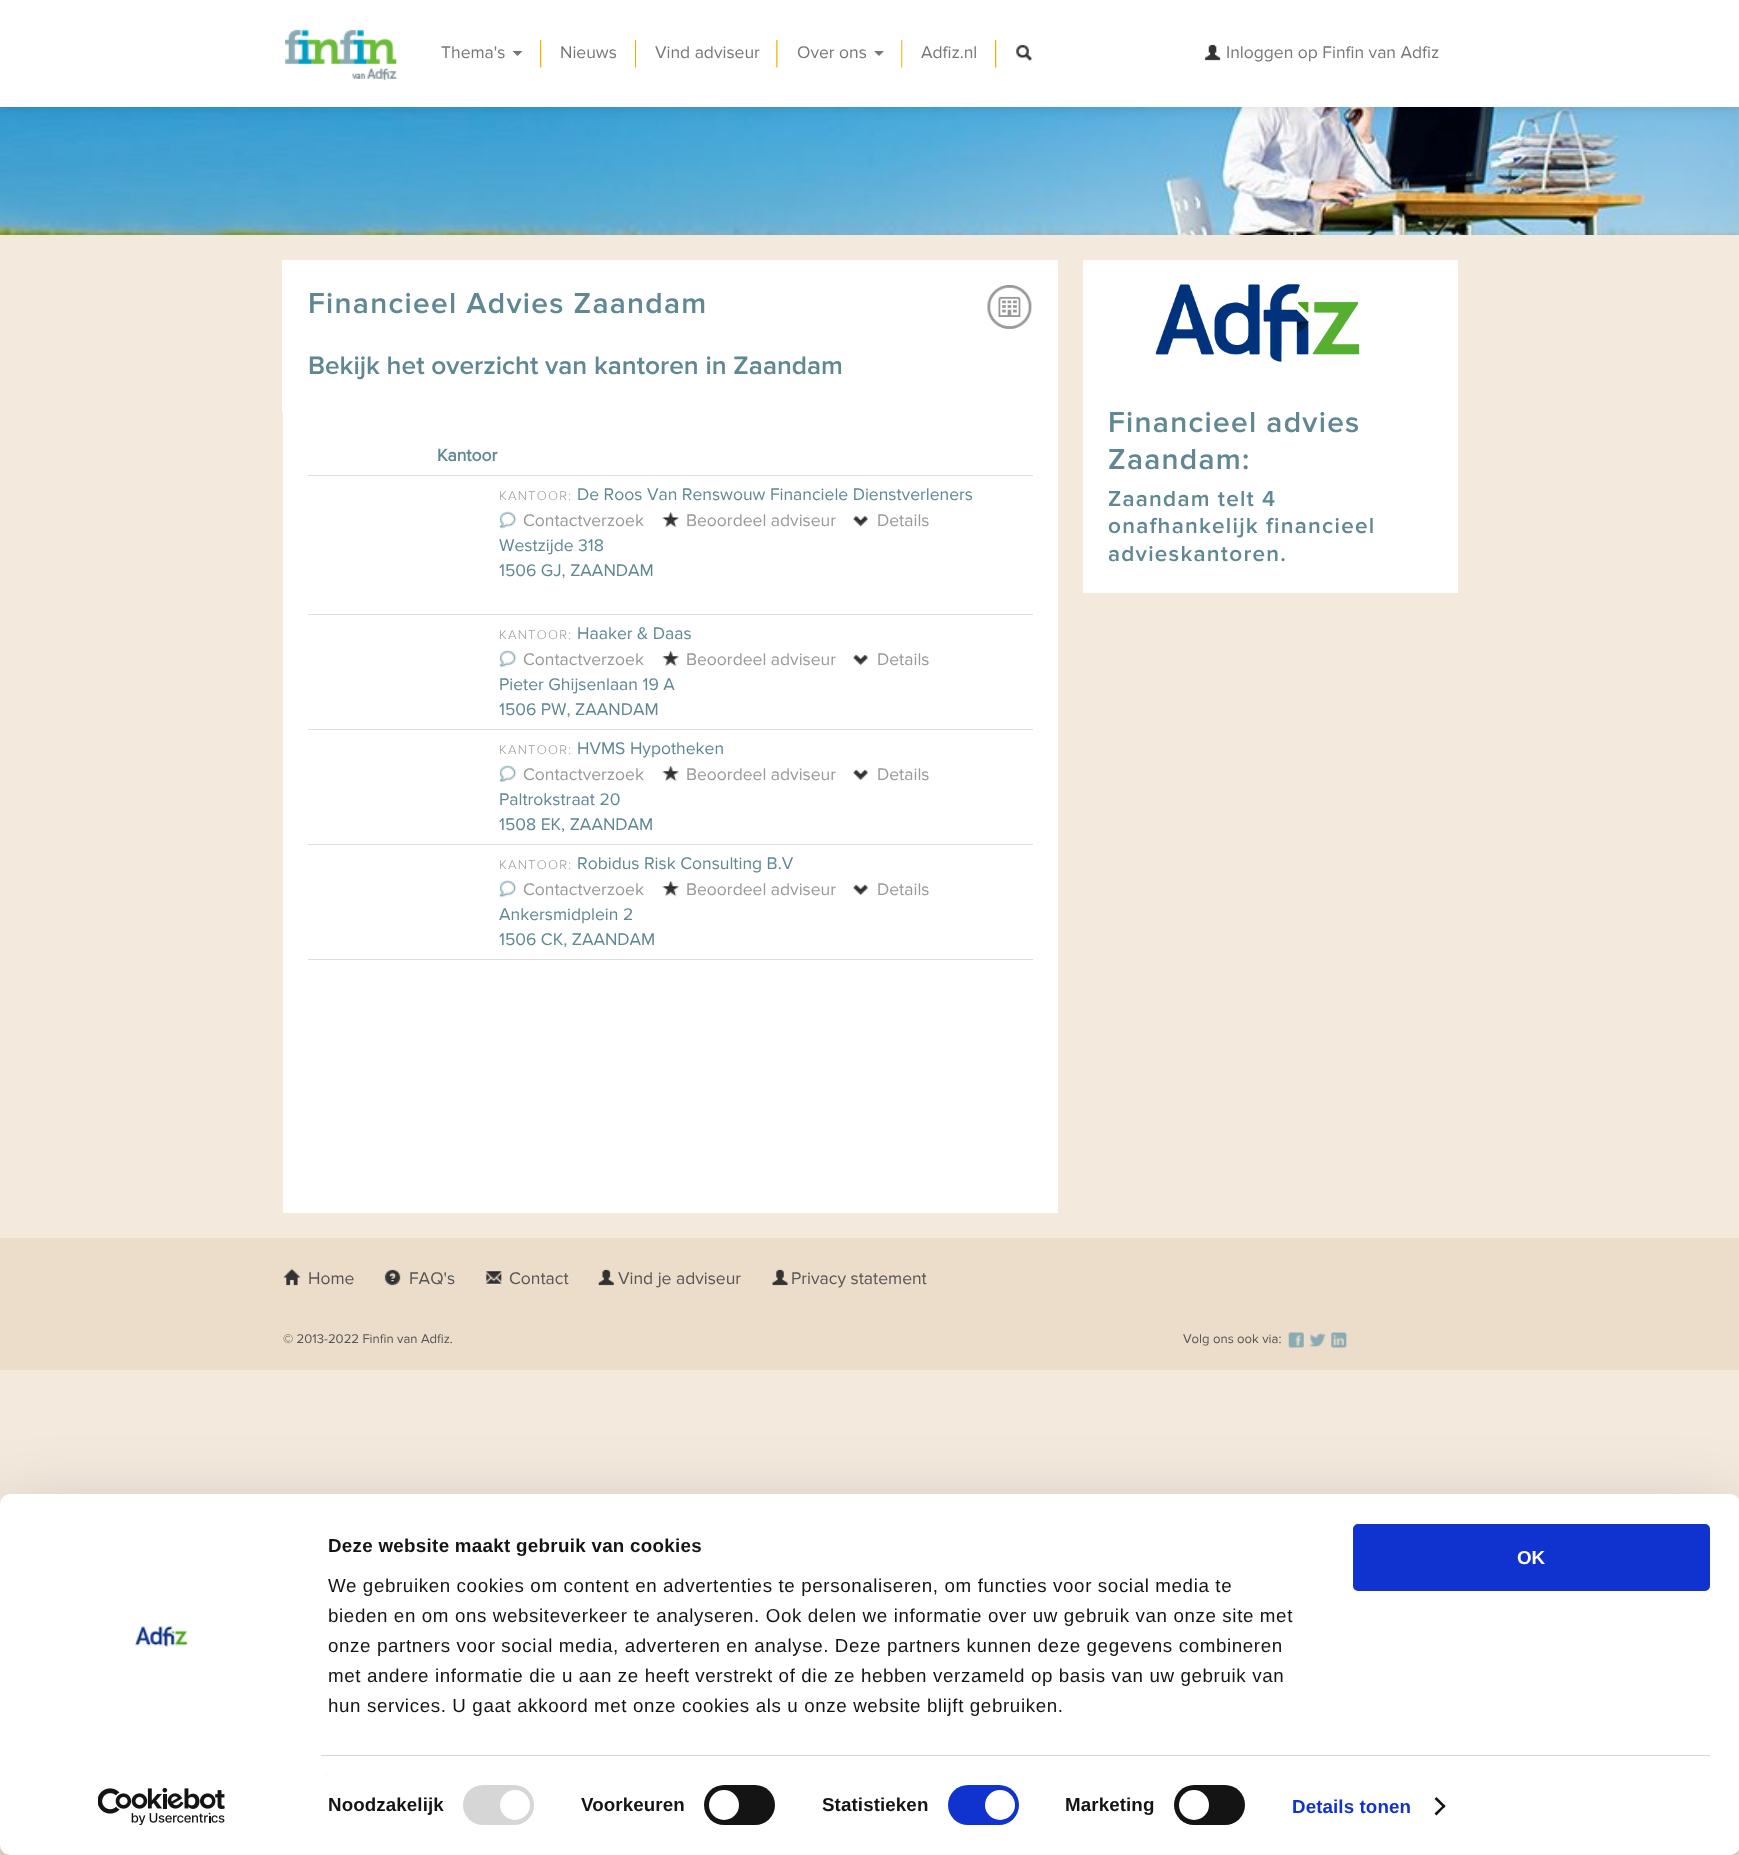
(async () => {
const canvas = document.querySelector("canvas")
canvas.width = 1739
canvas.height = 1855
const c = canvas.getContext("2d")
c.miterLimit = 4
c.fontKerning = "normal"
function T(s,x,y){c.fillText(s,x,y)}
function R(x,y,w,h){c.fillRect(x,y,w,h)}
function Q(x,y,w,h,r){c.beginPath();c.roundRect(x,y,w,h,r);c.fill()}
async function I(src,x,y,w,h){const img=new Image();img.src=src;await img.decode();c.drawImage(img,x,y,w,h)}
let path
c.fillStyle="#f3e9dd"
R(0,0,1739,1855)
await I("8.png",0,107,1739,128)
c.fillStyle="#0000001a"
c.filter="blur(6px)"
c.beginPath()
c.rect(0,1,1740,108)
c.fill()
c.filter="none"
c.fillStyle="#fff"
R(0,0,1739,107)
await I("1.png",284,29,113,52)
await I("2.png",540,40,2,28)
c.font="17.5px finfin"
c.fillStyle="#777"
T("Thema's",441,58)
path = new Path2D("M512.5 51h10l-5 5z")
c.fill(path)
await I("3.png",635,40,2,28)
T("Nieuws",560,58)
await I("4.png",776,40,2,28)
T("Vind adviseur",655,58)
await I("5.png",901,40,2,28)
T("Over ons",797,58)
path = new Path2D("M874 51h10l-5 5z")
c.fill(path)
await I("2.png",995,40,2,28)
T("Adfiz.nl",921,58)
await I("6.png",1016,44,17,18)
await I("7.png",1204,44,17,17)
T("Inloggen op Finfin van Adfiz",1226,58)
c.fillStyle="#fff"
R(282,260,776,153)
c.letterSpacing="1.25px"
c.font="600 30px finfin"
c.fillStyle="#5f8893"
T("Financieel Advies Zaandam",308,313)
await I("9.png",987,285,45,44)
c.letterSpacing="0px"
c.font="600 26.25px finfin"
T("Bekijk het overzicht van kantoren in Zaandam",308,374)
c.fillStyle="#fff"
R(283,413,775,800)
c.fillStyle="#ddd"
R(308,959,725,1)
c.font="bold 17.5px finfin"
c.fillStyle="#5f8893"
T("Kantoor",437,461)
c.fillStyle="#ddd"
R(308,475,725,1)
c.letterSpacing="1.25px"
c.font="300 13.1px finfin"
c.fillStyle="#999"
T("KANTOOR:",499,500)
c.letterSpacing="0px"
c.font="17.5px finfin"
c.fillStyle="#5f8893"
T("De Roos Van Renswouw Financiele Dienstverleners",577,500)
await I("10.png",499,511,18,18)
c.fillStyle="#999"
T("Contactverzoek",523,526)
await I("11.png",662,512,17,16)
T("Beoordeel adviseur",686,526)
await I("12.png",852,516,16,11)
T("Details",877,526)
c.fillStyle="#5f8893"
T("Westzijde 318",499,551)
T("1506 GJ, ZAANDAM",499,576)
c.fillStyle="#ddd"
R(308,614,725,1)
c.letterSpacing="1.25px"
c.font="300 13.1px finfin"
c.fillStyle="#999"
T("KANTOOR:",499,639)
c.letterSpacing="0px"
c.font="17.5px finfin"
c.fillStyle="#5f8893"
T("Haaker & Daas",577,639)
await I("13.png",498,650,19,18)
c.fillStyle="#999"
T("Contactverzoek",523,665)
await I("14.png",662,651,17,16)
T("Beoordeel adviseur",686,665)
await I("15.png",852,654,16,12)
T("Details",877,665)
c.fillStyle="#5f8893"
T("Pieter Ghijsenlaan 19 A",499,690)
T("1506 PW, ZAANDAM",499,715)
c.fillStyle="#ddd"
R(308,729,725,1)
c.letterSpacing="1.25px"
c.font="300 13.1px finfin"
c.fillStyle="#999"
T("KANTOOR:",499,754)
c.letterSpacing="0px"
c.font="17.5px finfin"
c.fillStyle="#5f8893"
T("HVMS Hypotheken",577,754)
await I("13.png",498,765,19,18)
c.fillStyle="#999"
T("Contactverzoek",523,780)
await I("14.png",662,766,17,16)
T("Beoordeel adviseur",686,780)
await I("15.png",852,769,16,12)
T("Details",877,780)
c.fillStyle="#5f8893"
T("Paltrokstraat 20",499,805)
T("1508 EK, ZAANDAM",499,830)
c.fillStyle="#ddd"
R(308,844,725,1)
c.letterSpacing="1.25px"
c.font="300 13.1px finfin"
c.fillStyle="#999"
T("KANTOOR:",499,869)
c.letterSpacing="0px"
c.font="17.5px finfin"
c.fillStyle="#5f8893"
T("Robidus Risk Consulting B.V",577,869)
await I("13.png",498,880,19,18)
c.fillStyle="#999"
T("Contactverzoek",523,895)
await I("14.png",662,881,17,16)
T("Beoordeel adviseur",686,895)
await I("15.png",852,884,16,12)
T("Details",877,895)
c.fillStyle="#5f8893"
T("Ankersmidplein 2",499,920)
T("1506 CK, ZAANDAM",499,945)
c.fillStyle="#fff"
R(1083,260,375,333)
await I("16.png",1155,283,205,79)
c.letterSpacing="1.25px"
c.font="600 30px finfin"
c.fillStyle="#5f8893"
T("Financieel advies",1108,432)
T("Zaandam:",1108,469)
c.font="600 22.5px finfin"
T("Zaandam telt 4",1108,506)
T("onafhankelijk financieel",1108,533)
T("advieskantoren.",1108,561)
c.fillStyle="#ecddca"
R(0,1238,1739,132)
await I("17.png",283,1268,18,18)
c.letterSpacing="0px"
c.font="17.5px finfin"
c.fillStyle="#555"
T("Home",308,1284)
await I("18.png",384,1269,17,17)
T("FAQ's",409,1284)
await I("19.png",486,1271,16,14)
T("Contact",509,1284)
await I("20.png",598,1269,16,17)
T("Vind je adviseur",618,1284)
await I("21.png",772,1269,16,17)
T("Privacy statement",791,1284)
c.font="13.1px finfin"
T("© 2013-2022 Finfin van Adfiz.",283,1343)
T("Volg ons ook via:",1183,1343)
await I("22.png",1287,1332,17,16)
await I("23.png",1310,1333,16,14)
await I("24.png",1330,1332,17,16)
c.fillStyle="#0000004d"
c.filter="blur(44px)"
c.beginPath()
c.roundRect(0,1531,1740,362,10)
c.fill()
c.filter="none"
c.fillStyle="#fff"
Q(0,1494,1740,361,10)
c.letterSpacing="0.3px"
c.font="bold 18.75px Liberation Sans"
c.fillStyle="#141414"
T("Deze website maakt gebruik van cookies",328,1552)
c.letterSpacing="0.62px"
c.font="18.75px Liberation Sans"
T("We gebruiken cookies om content en advertenties te personaliseren, om functies voor social media te",328,1592)
T("bieden en om ons websiteverkeer te analyseren. Ook delen we informatie over uw gebruik van onze site met",328,1622)
T("onze partners voor social media, adverteren en analyse. Deze partners kunnen deze gegevens combineren",328,1652)
T("met andere informatie die u aan ze heeft verstrekt of die ze hebben verzameld op basis van uw gebruik van",328,1682)
T("hun services. U gaat akkoord met onze cookies als u onze website blijft gebruiken.",328,1712)
c.fillStyle="#d6d6d6"
R(321,1755,1389,1)
c.fillStyle="#e5e5e5"
R(326,1774,1,1)
c.letterSpacing="0.1px"
c.font="bold 18.75px Liberation Sans"
c.fillStyle="#141414"
T("Noodzakelijk",328,1811)
c.fillStyle="#d6d6d6"
Q(463,1785,71,40,20)
c.fillStyle="#fff"
c.beginPath()
c.arc(515,1805,15,0,7)
c.fill()
c.fillStyle="#141414"
T("Voorkeuren",581,1811)
Q(704,1785,71,40,20)
c.fillStyle="#fff"
c.beginPath()
c.arc(724,1805,15,0,7)
c.fill()
c.fillStyle="#141414"
T("Statistieken",822,1811)
c.fillStyle="#1032cf"
Q(948,1785,71,40,20)
c.fillStyle="#fff"
c.beginPath()
c.arc(1000,1805,15,0,7)
c.fill()
c.fillStyle="#141414"
T("Marketing",1065,1811)
Q(1174,1785,71,40,20)
c.fillStyle="#fff"
c.beginPath()
c.arc(1194,1805,15,0,7)
c.fill()
c.fillStyle="#1032cf"
T("Details tonen",1292,1813)
c.fillStyle="#141414"
path = new Path2D("M1436.5 1797l9 9l-1.5 2l-9.5-9z")
c.fill(path)
path = new Path2D("M1444 1804.5l1.5 1.5l-9 9.5l-2-2z")
c.fill(path)
c.fillStyle="#1032cf"
c.beginPath()
c.roundRect(1354.5,1525.5,354,64,3.5)
c.fill()
c.strokeStyle="#1032cf"
c.lineWidth=3
c.stroke()
c.letterSpacing="0px"
c.fillStyle="#fff"
T("OK",1517,1564)
await I("25.png",135,1626,53,21)
await I("26.png",98,1788,127,37)
})()
